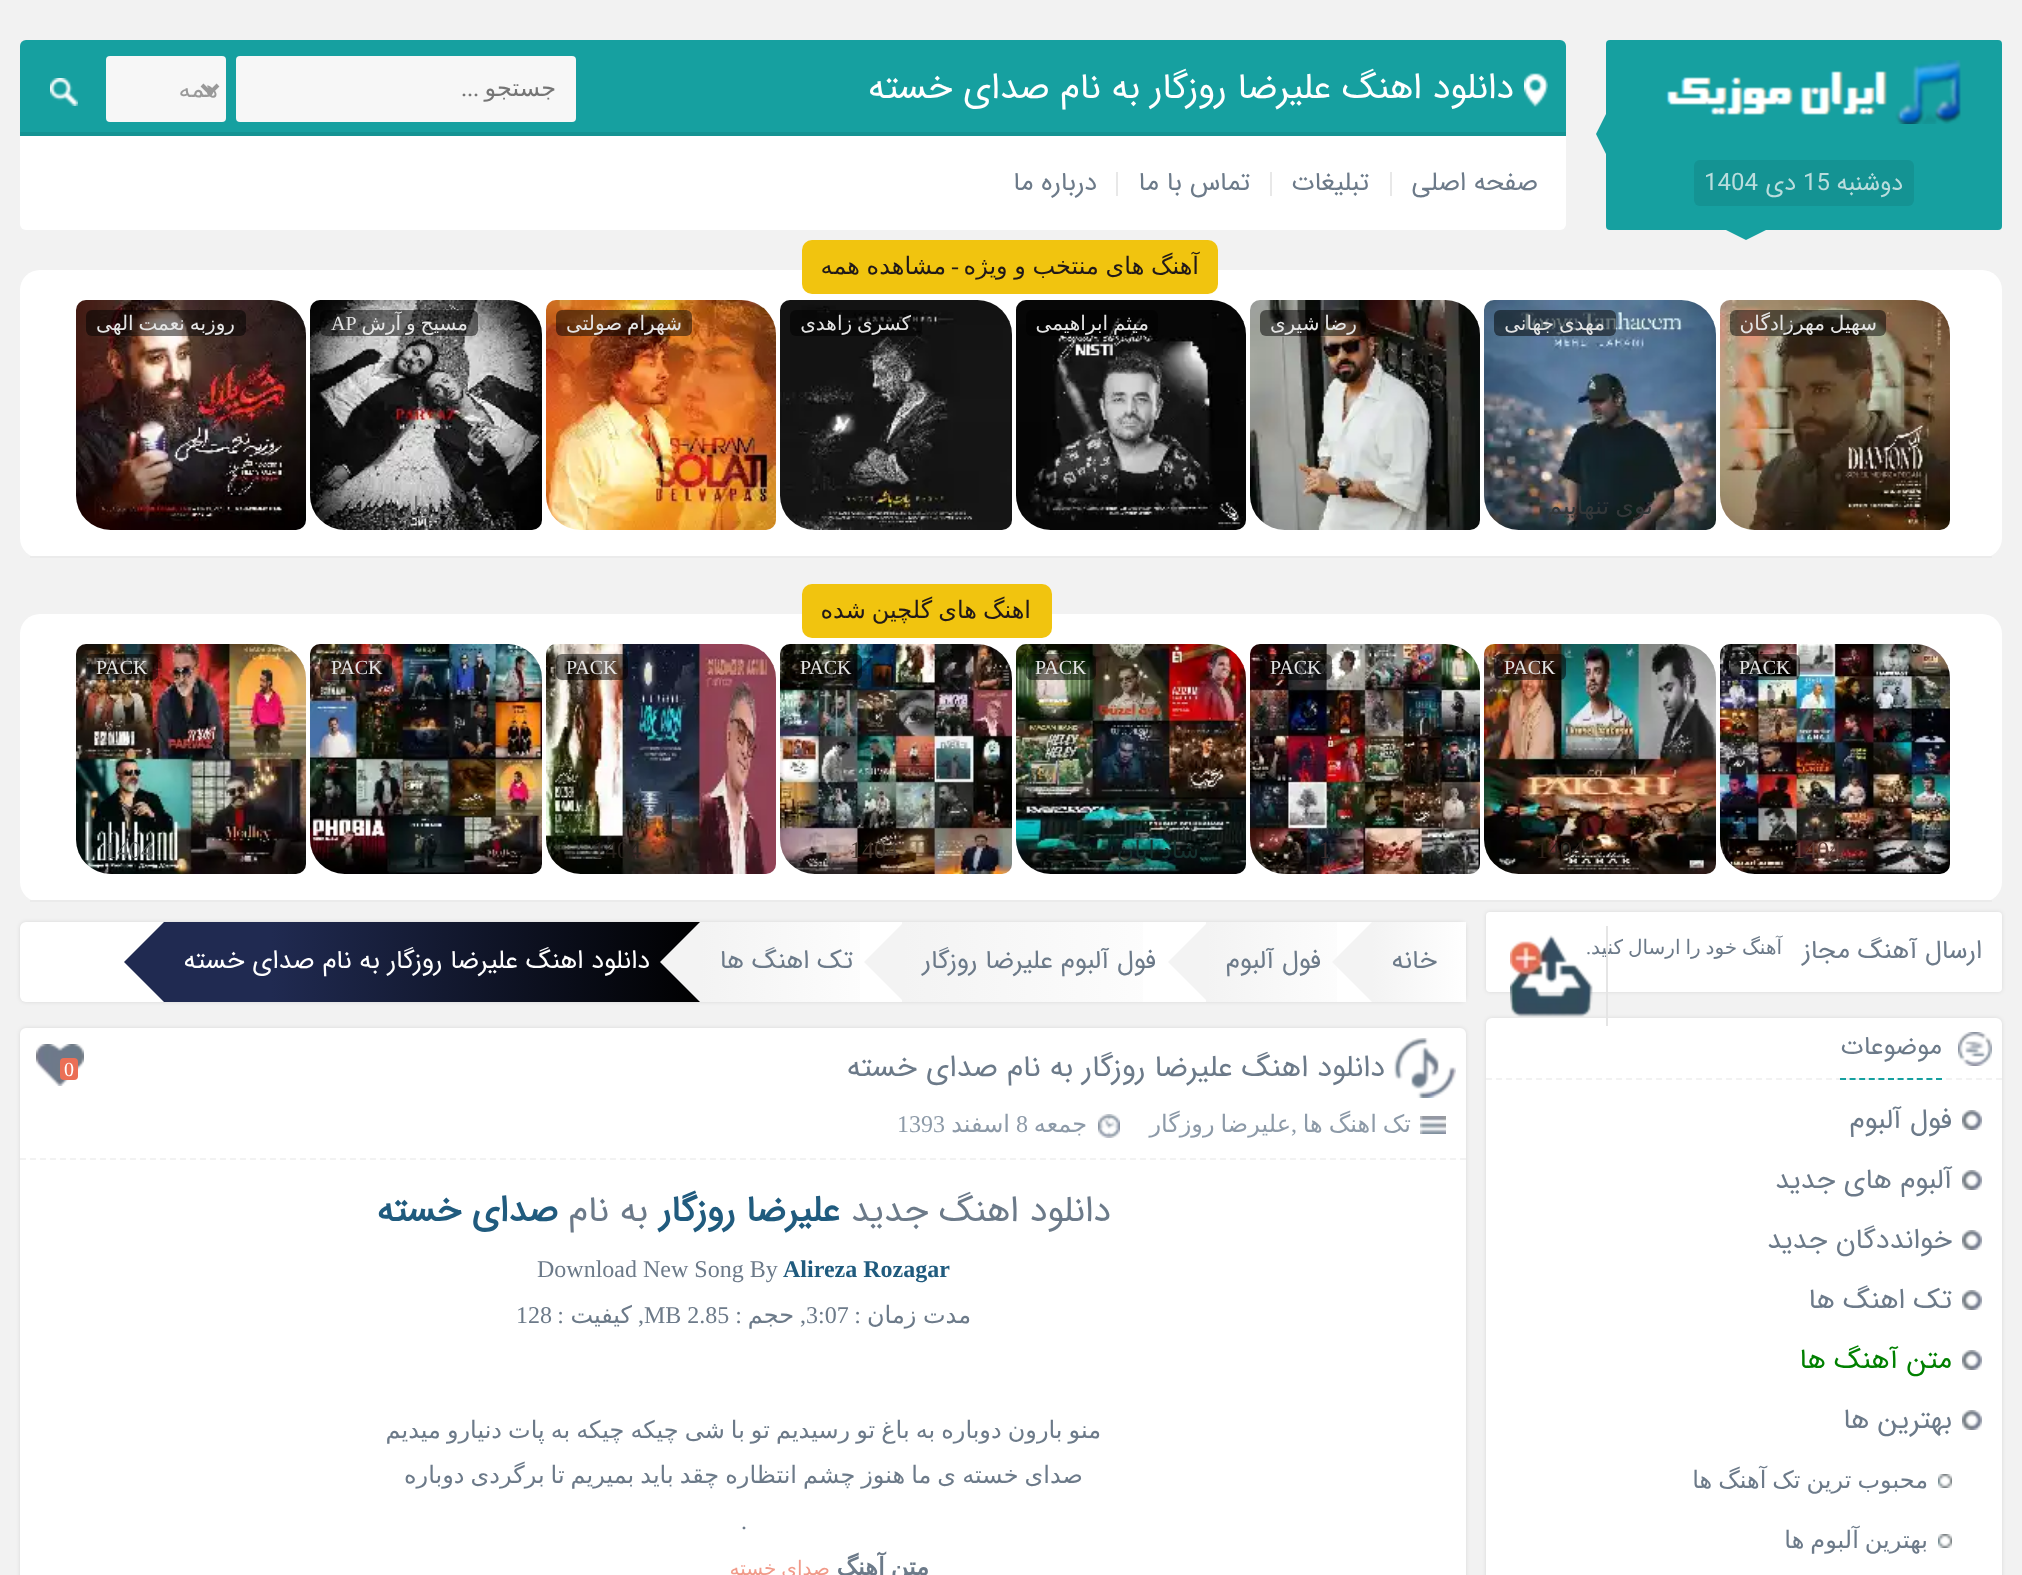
(async () => {
const canvas = document.querySelector("canvas")
canvas.width = 2022
canvas.height = 1575
const c = canvas.getContext("2d")
c.miterLimit = 4
c.fontKerning = "normal"
function T(s,x,y){c.fillText(s,x,y)}
function R(x,y,w,h){c.fillRect(x,y,w,h)}
function Q(x,y,w,h,r){c.beginPath();c.roundRect(x,y,w,h,r);c.fill()}
async function I(src,x,y,w,h){const img=new Image();img.src=src;await img.decode();c.drawImage(img,x,y,w,h)}
let gradient, path
c.fillStyle="#f2f2f2"
R(0,0,2022,1575)
c.fillStyle="#16a0a0"
c.beginPath()
c.roundRect(20,40,1546,96,[6,6,0,0])
c.fill()
c.fillStyle="#149393"
R(20,132,1546,4)
await I("1.png",1524,73,24,34)
c.direction="rtl"
c.font="36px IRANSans"
c.fillStyle="#fff"
T("دانلود اهنگ علیرضا روزگار به نام صدای خسته",1514,98)
c.fillStyle="#16a0a0"
Q(1606,40,396,190,4)
await I("2.png",1665,60,296,64)
path = new Path2D("M1606 114v40l-10-20z")
c.fill(path)
c.fillStyle="#149393"
c.beginPath()
c.roundRect(1830,160,84,46,[0,6,6,0])
c.fill()
c.font="24px IRANSans"
c.fillStyle="#b9dddd"
T("دوشنبه",1903,190)
c.fillStyle="#149393"
R(1758,160,72,46)
c.direction="ltr"
c.fillStyle="#b9dddd"
T("15",1803,190)
c.direction="rtl"
T("دی",1796,190)
c.fillStyle="#149393"
c.beginPath()
c.roundRect(1694,160,64,46,[6,0,0,6])
c.fill()
c.direction="ltr"
c.fillStyle="#b9dddd"
T("1404",1704,190)
c.fillStyle="#16a0a0"
path = new Path2D("M1726 230h40l-20 10z")
c.fill(path)
c.fillStyle="#fff"
c.beginPath()
c.roundRect(20,136,1546,94,[0,0,6,6])
c.fill()
c.fillStyle="#f7f7f7"
Q(236,56,340,66,4)
c.direction="rtl"
c.font="24px DejaVu Sans"
c.fillStyle="#757575"
T("جستجو",556,96)
c.font="24px Liberation Serif"
T("...",479,96)
c.fillStyle="#f7f7f7"
Q(106,56,120,66,4)
path = new Path2D("M202 85l8 8l8-8")
c.strokeStyle="#999"
c.lineWidth=4
c.stroke(path)
c.font="24px DejaVu Sans"
c.fillStyle="#999"
T("همه",218,97)
await I("3.png",50,78,28,28)
c.fillStyle="#e8e8e8"
R(1390,172,2,24)
c.font="26px IRANSans"
c.fillStyle="#6c7a89"
T("صفحه اصلی",1538,190)
c.fillStyle="#e8e8e8"
R(1270,172,2,24)
c.fillStyle="#6c7a89"
T("تبلیغات",1369,190)
c.fillStyle="#e8e8e8"
R(1116,172,2,24)
c.fillStyle="#6c7a89"
T("تماس با ما",1250,190)
T("درباره ما",1097,190)
c.fillStyle="#fff"
Q(20,270,1982,288,20)
c.fillStyle="#ebebeb"
R(30,556,1962,2)
c.fillStyle="#f1c40f"
Q(802,240,416,54,10)
c.wordSpacing="-1px"
c.font="24px DejaVu Sans"
c.fillStyle="#211919"
T("آهنگ های منتخب و ویژه",1199,274)
c.wordSpacing="0px"
c.font="24px Liberation Serif"
T("-",959,274)
c.wordSpacing="-1px"
c.font="24px DejaVu Sans"
T("مشاهده همه",946,274)
await I("4.png",1720,300,230,230)
c.fillStyle="#00000080"
Q(1730,310,156,26,6)
c.wordSpacing="-1.5px"
c.font="20px DejaVu Sans"
c.fillStyle="#e5e5e5"
T("سهیل مهرزادگان",1877,330)
await I("5.png",1484,300,232,230)
c.fillStyle="#00000080"
Q(1494,310,122,26,6)
c.fillStyle="#e5e5e5"
T("مهدی جهانی",1605,330)
c.wordSpacing="-1.6px"
c.font="24px DejaVu Sans"
c.fillStyle="#333739"
T("توی تنهاییم",1653,514)
await I("6.png",1250,300,230,230)
c.fillStyle="#00000080"
Q(1260,310,106,26,6)
c.wordSpacing="-1.5px"
c.font="20px DejaVu Sans"
c.fillStyle="#e5e5e5"
T("رضا شیری",1357,330)
await I("7.png",1016,300,230,230)
c.fillStyle="#00000080"
Q(1026,310,132,26,6)
c.fillStyle="#e5e5e5"
T("میثم ابراهیمی",1149,330)
await I("8.png",780,300,232,230)
c.fillStyle="#00000080"
Q(790,310,132,26,6)
c.fillStyle="#e5e5e5"
T("کسری زاهدی",911,330)
await I("9.png",546,300,230,230)
c.fillStyle="#00000080"
Q(556,310,136,26,6)
c.fillStyle="#e5e5e5"
T("شهرام صولتی",682,330)
await I("10.png",310,300,232,230)
c.fillStyle="#00000080"
Q(320,310,158,26,6)
c.fillStyle="#e5e5e5"
T("مسیح و آرش",468,330)
c.wordSpacing="0px"
c.direction="ltr"
c.font="20px Liberation Serif"
T("AP",331,330)
c.direction="rtl"
c.font="24px DejaVu Sans"
c.fillStyle="#6f6f70"
T("پرواز",451,514)
await I("11.png",76,300,230,230)
c.fillStyle="#00000080"
Q(86,310,160,26,6)
c.wordSpacing="-1.5px"
c.font="20px DejaVu Sans"
c.fillStyle="#e5e5e5"
T("روزبه نعمت الهی",235,330)
c.fillStyle="#fff"
Q(20,614,1982,288,20)
c.fillStyle="#ebebeb"
R(30,900,1962,2)
c.fillStyle="#f1c40f"
Q(802,584,250,54,10)
c.wordSpacing="-1.6px"
c.font="24px DejaVu Sans"
c.fillStyle="#211919"
T("اهنگ های گلچین شده",1031,618)
await I("12.png",1720,644,230,230)
c.fillStyle="#00000080"
Q(1730,654,70,26,6)
c.wordSpacing="0px"
c.direction="ltr"
c.font="20px Liberation Serif"
c.fillStyle="#e5e5e5"
T("PACK",1739,674)
c.font="24px Liberation Serif"
c.fillStyle="#61413b"
T("1404",1793,858)
await I("13.png",1484,644,232,230)
c.fillStyle="#00000080"
Q(1494,654,72,26,6)
c.font="20px Liberation Serif"
c.fillStyle="#e5e5e5"
T("PACK",1504,674)
c.font="24px Liberation Serif"
c.fillStyle="#2e221c"
T("1404",1536,858)
await I("14.png",1250,644,230,230)
c.fillStyle="#00000080"
Q(1260,654,72,26,6)
c.font="20px Liberation Serif"
c.fillStyle="#e5e5e5"
T("PACK",1270,674)
c.font="24px Liberation Serif"
c.fillStyle="#3e2f2f"
T("1",1319,858)
await I("15.png",1016,644,230,230)
c.fillStyle="#00000080"
Q(1026,654,70,26,6)
c.font="20px Liberation Serif"
c.fillStyle="#e5e5e5"
T("PACK",1035,674)
c.wordSpacing="-1.6px"
c.direction="rtl"
c.font="24px DejaVu Sans"
c.fillStyle="#16302e"
T("شاد آبان",1199,858)
await I("16.png",780,644,232,230)
c.fillStyle="#00000080"
Q(790,654,72,26,6)
c.wordSpacing="0px"
c.direction="ltr"
c.font="20px Liberation Serif"
c.fillStyle="#e5e5e5"
T("PACK",800,674)
c.font="24px Liberation Serif"
c.fillStyle="#473930"
T("1404",850,858)
await I("17.png",546,644,230,230)
c.fillStyle="#00000080"
Q(556,654,72,26,6)
c.font="20px Liberation Serif"
c.fillStyle="#e5e5e5"
T("PACK",566,674)
c.font="24px Liberation Serif"
c.fillStyle="#28221d"
T("1404",593,858)
await I("18.png",310,644,232,230)
c.fillStyle="#00000080"
Q(320,654,72,26,6)
c.font="20px Liberation Serif"
c.fillStyle="#e5e5e5"
T("PACK",331,674)
await I("19.png",76,644,230,230)
c.fillStyle="#00000080"
Q(86,654,72,26,6)
c.fillStyle="#e5e5e5"
T("PACK",96,674)
c.font="24px Liberation Serif"
c.fillStyle="#5d6262"
T("1404",105,858)
c.fillStyle="#0000001a"
c.filter="blur(2px)"
c.beginPath()
c.roundRect(1486,912,516,80,4)
c.fill()
c.filter="none"
c.fillStyle="#fff"
Q(1486,912,516,80,4)
c.direction="rtl"
c.font="26px IRANSans"
c.fillStyle="#6c7a89"
T("ارسال آهنگ مجاز",1982,958)
c.wordSpacing="-1.5px"
c.font="20px DejaVu Sans"
T("آهنگ خود را ارسال کنید",1782,954)
c.wordSpacing="0px"
c.font="20px Liberation Serif"
T(".",1591,954)
c.fillStyle="#0000001a"
c.filter="blur(2px)"
c.beginPath()
c.roundRect(1486,1018,516,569,6)
c.fill()
c.filter="none"
await I("20.png",1510,935,83,82)
c.fillStyle="#fff"
Q(1486,1018,516,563,6)
c.fillStyle="#e5e5e5"
R(1606,926,2,100)
path = new Path2D("M1486 1079h516")
c.strokeStyle="#f2f2f2"
c.lineWidth=2
c.setLineDash([6,4])
c.stroke(path)
await I("21.png",1958,1032,34,34)
path = new Path2D("M1840 1079h102")
c.strokeStyle="#16a0a0"
c.setLineDash([6,3.6])
c.stroke(path)
c.font="26px IRANSans"
c.fillStyle="#6c7a89"
T("موضوعات",1942,1054)
await I("22.png",1962,1110,20,20)
c.font="28px IRANSans"
T("فول آلبوم",1952,1128)
await I("22.png",1962,1170,20,20)
T("آلبوم های جدید",1952,1188)
await I("22.png",1962,1230,20,20)
T("خوانددگان جدید",1952,1248)
await I("22.png",1962,1290,20,20)
T("تک اهنگ ها",1952,1308)
await I("22.png",1962,1350,20,20)
c.fillStyle="#008000"
T("متن آهنگ ها",1952,1368)
await I("22.png",1962,1410,20,20)
c.fillStyle="#6c7a89"
T("بهترین ها",1952,1428)
await I("23.png",1938,1474,14,14)
c.wordSpacing="-1.6px"
c.font="24px DejaVu Sans"
T("محبوب ترین تک آهنگ ها",1928,1488)
await I("23.png",1938,1534,14,14)
T("بهترین آلبوم ها",1928,1548)
c.fillStyle="#0000001a"
c.filter="blur(2px)"
c.beginPath()
c.roundRect(20,922,1446,80,6)
c.fill()
c.filter="none"
c.fillStyle="#fff"
Q(20,922,1446,80,6)
gradient = c.createLinearGradient(1372,962,1466,962)
gradient.addColorStop(0,"#f3f3f3")
gradient.addColorStop(1,"#fff")
c.fillStyle = gradient
R(1372,922,94,80)
c.wordSpacing="0px"
c.font="26px IRANSans"
c.fillStyle="#6c7a89"
T("خانه",1437,968)
gradient = c.createLinearGradient(1206,962,1372,962)
gradient.addColorStop(0,"#f3f3f3")
gradient.addColorStop(1,"#fff")
c.fillStyle = gradient
R(1206,922,131,80)
c.fillStyle="#f3f3f3"
path = new Path2D("M1372 922v80l-40-40z")
c.fill(path)
c.fillStyle="#6c7a89"
T("فول آلبوم",1321,968)
c.fillStyle="#f3f3f3"
path = new Path2D("M1208 922v80l-40-40z")
c.fill(path)
gradient = c.createLinearGradient(902,962,1206,962)
gradient.addColorStop(0,"#f3f3f3")
gradient.addColorStop(1,"#fff")
c.fillStyle = gradient
R(902,922,241,80)
c.fillStyle="#6c7a89"
T("فول آلبوم علیرضا روزگار",1156,968)
c.fillStyle="#f3f3f3"
path = new Path2D("M904 922v80l-40-40z")
c.fill(path)
gradient = c.createLinearGradient(700,962,902,962)
gradient.addColorStop(0,"#f3f3f3")
gradient.addColorStop(1,"#fff")
c.fillStyle = gradient
R(700,922,160,80)
c.fillStyle="#6c7a89"
T("تک اهنگ ها",853,968)
gradient = c.createLinearGradient(164,962,700,962)
gradient.addColorStop(.2,"#202a51")
gradient.addColorStop(1,"#000")
c.fillStyle = gradient
R(164,922,536,80)
c.fillStyle="#f3f3f3"
path = new Path2D("M700 922v80l-40-40z")
c.fill(path)
c.fillStyle="#fff"
T("دانلود اهنگ علیرضا روزگار به نام صدای خسته",650,968)
c.fillStyle="#202a51"
path = new Path2D("M164 922v80l-40-40z")
c.fill(path)
c.fillStyle="#0000001a"
c.filter="blur(2px)"
c.beginPath()
c.roundRect(20,1028,1446,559,6)
c.fill()
c.filter="none"
c.fillStyle="#fff"
Q(20,1028,1446,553,6)
await I("24.png",1394,1038,62,60)
c.font="30px IRANSans"
c.fillStyle="#6c7a89"
T("دانلود اهنگ علیرضا روزگار به نام صدای خسته",1385,1076)
await I("25.png",36,1044,48,42)
c.fillStyle="#eb6f56"
Q(60,1058,18,22,4)
c.direction="ltr"
c.font="20px Liberation Serif"
c.fillStyle="#fff"
T("0",64,1076)
path = new Path2D("M20 1159h1446")
c.strokeStyle="#f2f2f2"
c.setLineDash([6,4])
c.stroke(path)
await I("26.png",1420,1116,26,18)
c.wordSpacing="-1.6px"
c.direction="rtl"
c.font="24px DejaVu Sans"
c.fillStyle="#8d9aa8"
T("تک اهنگ ها",1411,1132)
c.wordSpacing="0px"
c.direction="ltr"
c.font="24px Liberation Serif"
T(",",1291,1132)
c.wordSpacing="-1.6px"
c.direction="rtl"
c.font="24px DejaVu Sans"
T("علیرضا روزگار",1291,1132)
await I("27.png",1098,1114,22,24)
c.wordSpacing="0px"
T("جمعه",1087,1132)
c.direction="ltr"
c.font="24px Liberation Serif"
T("8",1016,1132)
c.direction="rtl"
c.font="24px DejaVu Sans"
T("اسفند",1010,1132)
c.direction="ltr"
c.font="24px Liberation Serif"
T("1393",897,1132)
c.direction="rtl"
c.font="36px IRANSans"
c.fillStyle="#6c7a89"
T("دانلود اهنگ جدید",1111,1221)
c.font="bold 36px IRANSans"
c.fillStyle="#205b7e"
T("علیرضا روزگار",840,1221)
c.font="36px IRANSans"
c.fillStyle="#6c7a89"
T("به نام",648,1221)
c.font="bold 36px IRANSans"
c.fillStyle="#205b7e"
T("صدای خسته",558,1221)
c.direction="ltr"
c.font="bold 24px Liberation Serif"
T("Alireza Rozagar",783,1277)
c.font="24px Liberation Serif"
c.fillStyle="#6c7a89"
T("Download New Song By",537,1277)
c.wordSpacing="-1px"
c.direction="rtl"
c.font="24px DejaVu Sans"
T("مدت زمان",971,1323)
c.wordSpacing="0px"
c.font="24px Liberation Serif"
T(":",861,1323)
c.direction="ltr"
T("3:07",806,1323)
c.direction="rtl"
T(",",806,1323)
c.font="24px DejaVu Sans"
T("حجم",794,1323)
c.font="24px Liberation Serif"
T(":",742,1323)
c.direction="ltr"
T("MB 2.85",644,1323)
c.direction="rtl"
T(",",644,1323)
c.font="24px DejaVu Sans"
T("کیفیت",632,1323)
c.font="24px Liberation Serif"
T(":",564,1323)
c.direction="ltr"
T("128",516,1323)
c.wordSpacing="-1.6px"
c.direction="rtl"
c.font="24px DejaVu Sans"
T("منو بارون دوباره به باغ تو رسیدیم تو با شی چیکه چیکه به پات دنیارو میدیم",1101,1438)
T("صدای خسته ی ما هنوز چشم انتظاره چقد باید بمیریم تا برگردی دوباره",1083,1483)
c.wordSpacing="0px"
c.direction="ltr"
c.font="24px Liberation Serif"
T(".",741,1529)
c.wordSpacing="-1.6px"
c.direction="rtl"
c.font="bold 24px DejaVu Sans"
T("متن آهنگ",929,1575)
c.wordSpacing="-1.5px"
c.font="20px DejaVu Sans"
c.fillStyle="#f19a89"
T("صدای خسته",830,1575)
})()
